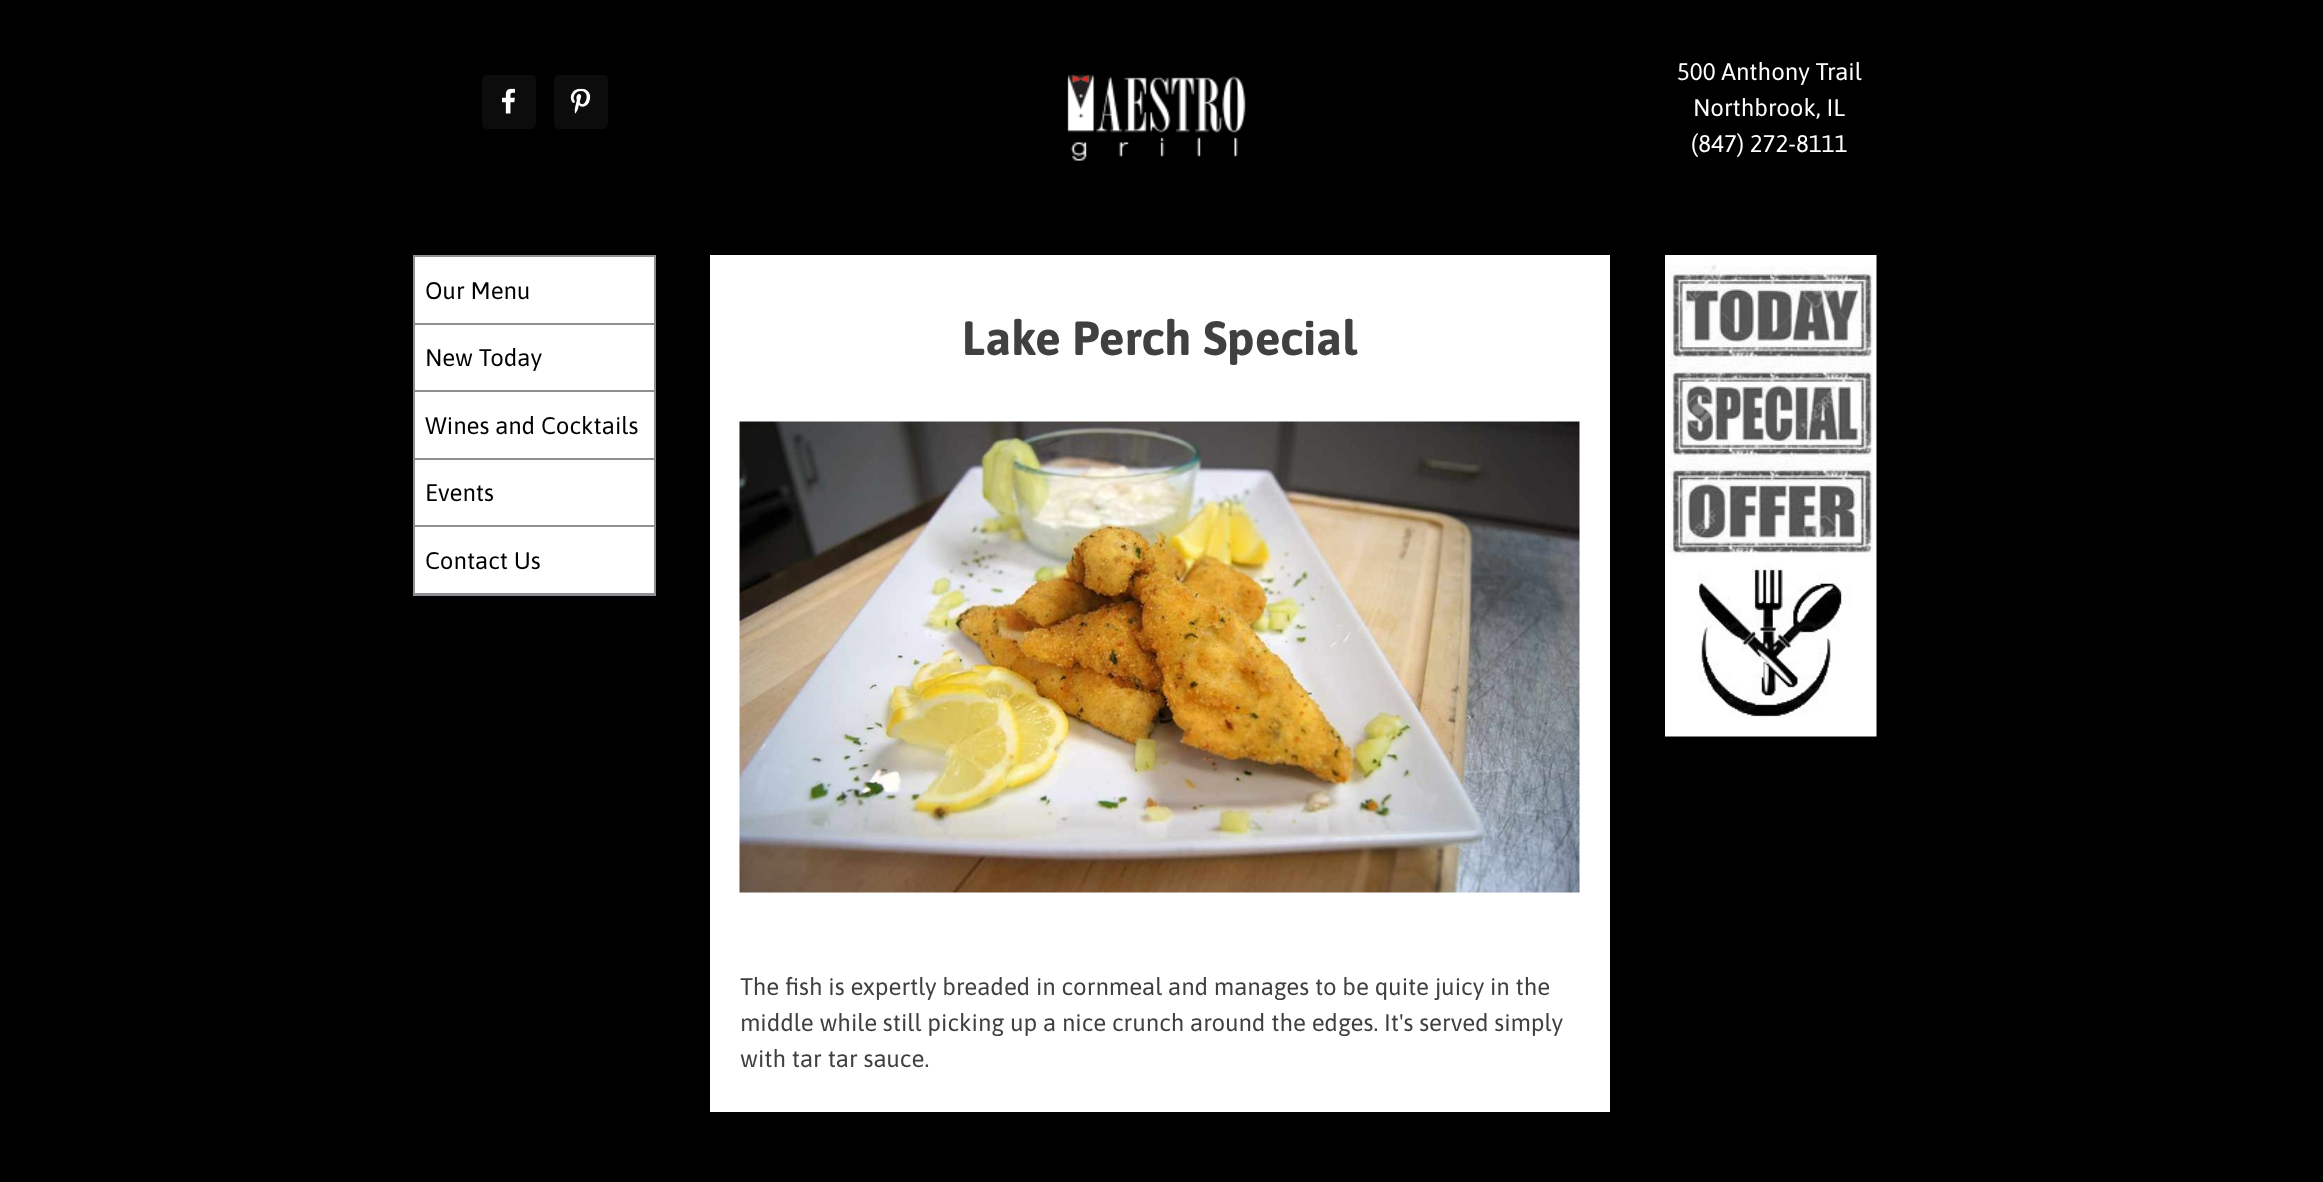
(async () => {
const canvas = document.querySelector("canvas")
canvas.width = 2323
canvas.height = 1182
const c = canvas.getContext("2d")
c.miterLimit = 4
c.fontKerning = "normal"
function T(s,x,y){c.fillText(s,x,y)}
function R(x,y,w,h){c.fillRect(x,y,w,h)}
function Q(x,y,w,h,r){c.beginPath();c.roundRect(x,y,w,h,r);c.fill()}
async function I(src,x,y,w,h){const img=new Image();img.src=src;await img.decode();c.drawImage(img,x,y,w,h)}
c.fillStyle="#000"
R(0,0,2323,1182)
c.fillStyle="#0c0c0c"
Q(482,75,54,54,5)
await I("1.png",502,88,13,26)
Q(554,75,54,54,5)
await I("2.png",570,88,21,26)
await I("3.png",1067,74,179,87)
c.font="24px Asap"
c.fillStyle="#fff"
T("500 Anthony Trail",1677,80)
T("Northbrook, IL",1693,116)
T("(847) 272-8111",1691,152)
R(415,257,239,336)
c.strokeStyle="#8d8f92"
c.lineWidth=2
c.strokeRect(414,256,241,339)
c.fillStyle="#8d8f92"
R(414,323,240,2)
c.fillStyle="#000"
T("Our Menu",425,299)
c.fillStyle="#8d8f92"
R(414,390,240,2)
c.fillStyle="#000"
T("New Today",425,366)
c.fillStyle="#8d8f92"
R(414,458,240,2)
c.fillStyle="#000"
T("Wines and Cocktails",425,434)
c.fillStyle="#8d8f92"
R(414,525,240,2)
c.fillStyle="#000"
T("Events",425,501)
c.fillStyle="#8d8f92"
R(414,593,240,1)
c.fillStyle="#000"
T("Contact Us",425,569)
c.fillStyle="#fff"
R(710,255,900,857)
c.font="bold 48px Asap"
c.fillStyle="#404040"
T("Lake Perch Special",962,355)
await I("4.png",739,421,841,472)
c.font="24px Asap"
T("The fish is expertly breaded in cornmeal and manages to be quite juicy in the",740,995)
T("middle while still picking up a nice crunch around the edges. It's served simply",740,1031)
T("with tar tar sauce.",740,1067)
await I("5.png",1665,255,212,482)
})()
